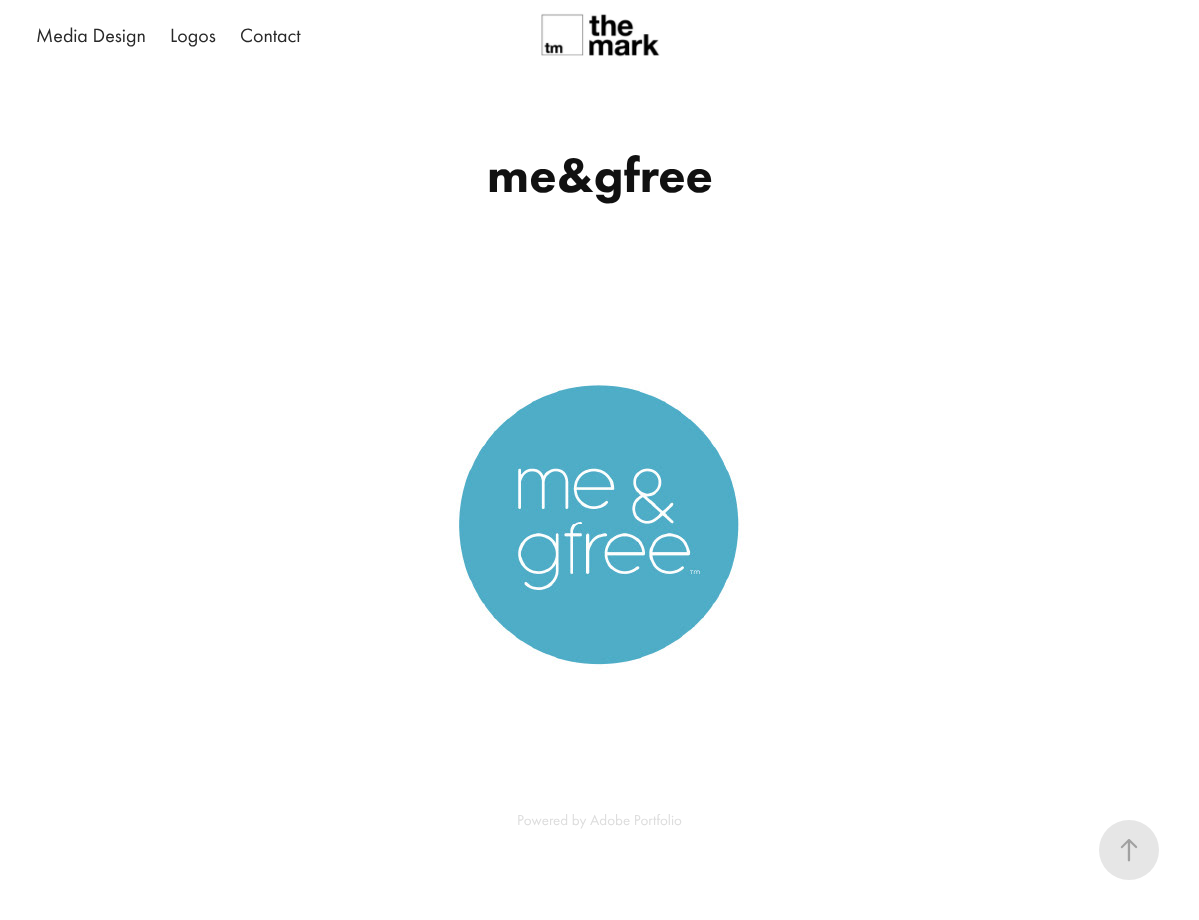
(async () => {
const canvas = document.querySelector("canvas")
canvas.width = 1199
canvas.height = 920
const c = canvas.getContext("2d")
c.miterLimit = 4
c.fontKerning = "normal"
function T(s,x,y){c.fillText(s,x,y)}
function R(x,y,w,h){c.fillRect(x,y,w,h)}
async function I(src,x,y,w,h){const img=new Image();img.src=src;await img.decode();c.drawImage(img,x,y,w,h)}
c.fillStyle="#fff"
R(0,0,1199,920)
c.font="20px Futura PT"
c.fillStyle="#282828"
T("Media Design",36,42)
T("Logos",170,42)
T("Contact",240,42)
await I("1.png",541,13,119,44)
c.font="900 50px Futura PT"
c.fillStyle="#111"
T("me&gfree",487,192)
await I("2.png",456,384,288,288)
c.fillStyle="#e6e6e6"
c.beginPath()
c.arc(1129,850,30,0,7)
c.fill()
await I("3.png",1120,839,18,23)
c.font="15px Futura PT"
c.fillStyle="#ddd"
T("Powered by Adobe Portfolio",517,825)
})()
